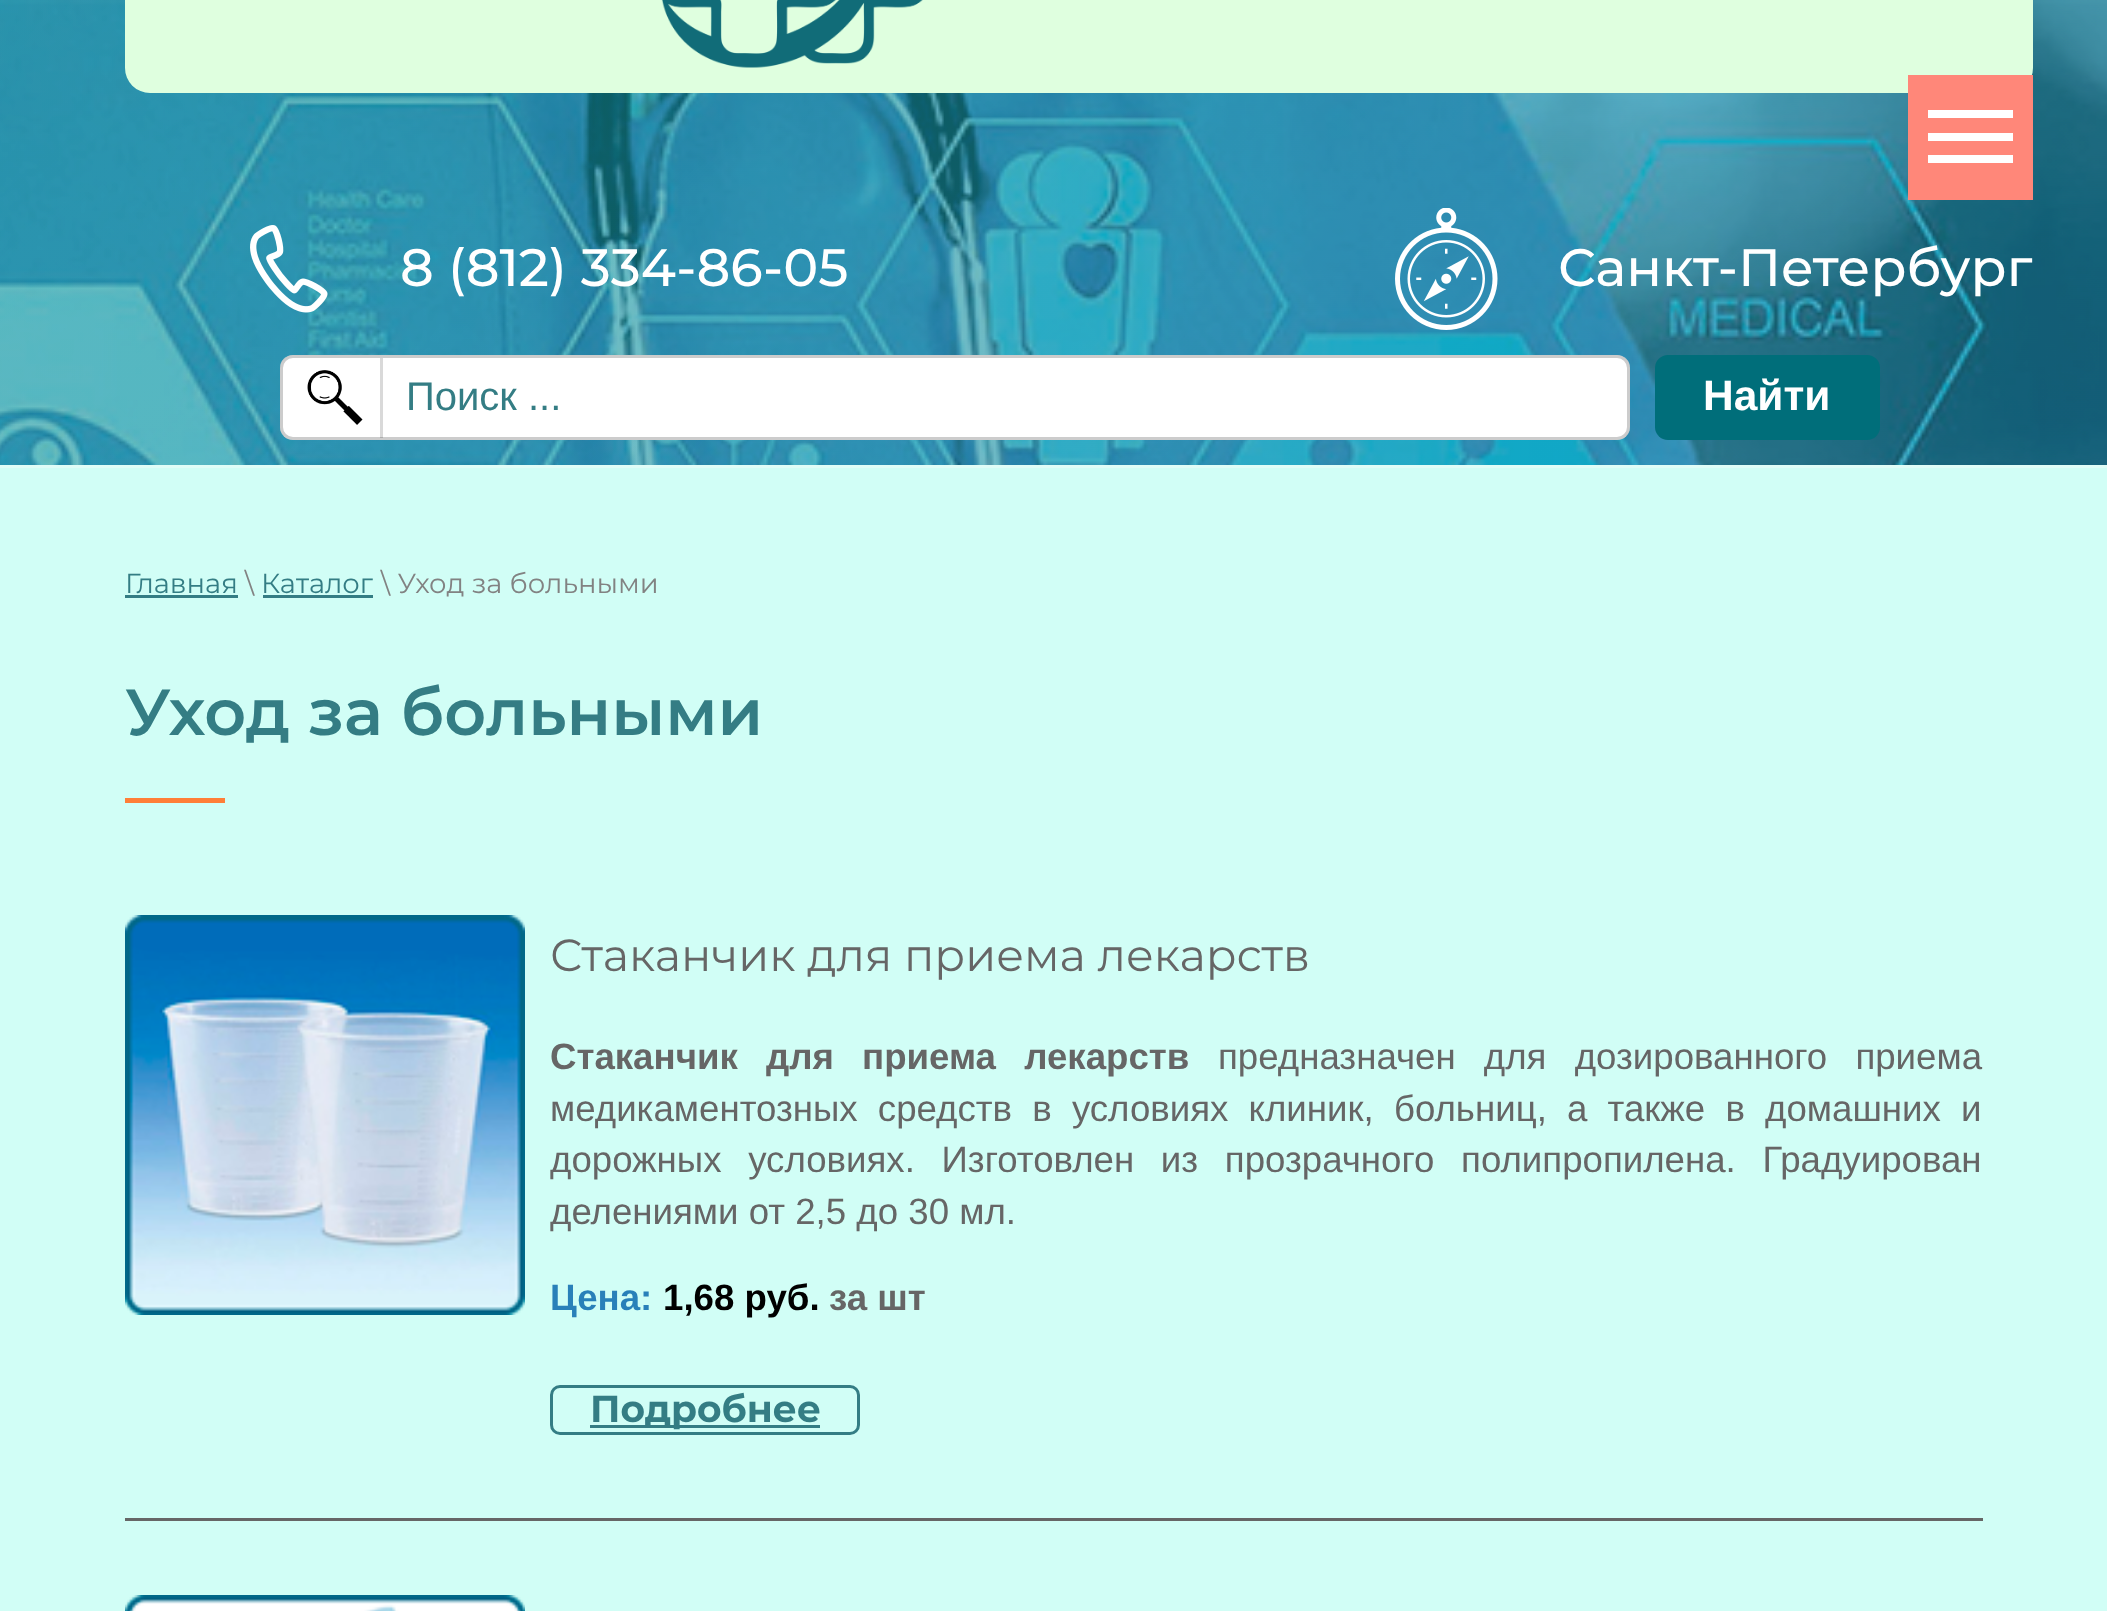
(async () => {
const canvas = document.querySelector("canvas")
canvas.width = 2107
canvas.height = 1611
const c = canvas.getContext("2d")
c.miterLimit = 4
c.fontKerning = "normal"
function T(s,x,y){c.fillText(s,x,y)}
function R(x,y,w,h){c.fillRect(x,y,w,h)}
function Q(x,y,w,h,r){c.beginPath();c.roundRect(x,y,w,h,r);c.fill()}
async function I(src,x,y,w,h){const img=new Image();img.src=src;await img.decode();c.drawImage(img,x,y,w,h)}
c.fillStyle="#e0fdf7"
R(0,0,2107,1611)
await I("1.png",0,0,2107,465)
c.fillStyle="#dfffdf"
Q(125,-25,1908,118,25)
c.fillStyle="#ff8779"
R(1908,75,125,125)
c.fillStyle="#fff"
R(1928,110,85,8)
R(1928,133,85,8)
R(1928,155,85,8)
await I("2.png",661,0,262,68)
await I("3.png",250,225,78,88)
c.font="500 52.5px Montserrat"
T("8 (812) 334-86-05",400,286)
await I("4.png",1395,208,103,122)
T("Санкт-Петербург",1558,286)
Q(280,355,1350,85,13)
c.beginPath()
c.roundRect(281.5,356.5,1347,82,11.5)
c.strokeStyle="#00000033"
c.lineWidth=3
c.stroke()
await I("5.png",307,370,56,55)
c.fillStyle="#00000026"
R(380,358,3,80)
c.font="40px Liberation Sans"
c.fillStyle="#347d84"
T("Поиск ...",406,410)
c.fillStyle="#006e7a"
Q(1655,355,225,85,13)
c.font="bold 42.5px Liberation Sans"
c.fillStyle="#fff"
T("Найти",1703,410)
c.fillStyle="#d1fef6"
R(0,468,2107,1143)
c.font="27.5px Montserrat"
c.fillStyle="#347d84"
T("Главная",125,593)
R(125,595,113,3)
c.fillStyle="#828282"
T("\\",245,593)
c.fillStyle="#347d84"
T("Каталог",261,593)
R(263,595,110,3)
c.fillStyle="#828282"
T("\\ Уход за больными",381,593)
c.fillStyle="#ff7e38"
R(125,798,100,5)
c.font="600 65px Montserrat"
c.fillStyle="#347d84"
T("Уход за больными",125,735)
c.fillStyle="#666"
R(125,1518,1858,3)
await I("6.png",125,915,400,400)
c.font="45px Montserrat"
T("Стаканчик для приема лекарств",550,971)
c.wordSpacing="18px"
c.font="bold 36.65px Liberation Sans"
T("Стаканчик для приема лекарств",550,1069)
c.font="36.65px Liberation Sans"
T("предназначен для дозированного приема",1218,1069)
c.wordSpacing="10px"
T("медикаментозных средств в условиях клиник, больниц, а также в домашних и",550,1121)
c.wordSpacing="16.5px"
T("дорожных условиях. Изготовлен из прозрачного полипропилена. Градуирован",550,1172)
c.wordSpacing="0px"
T("делениями от 2,5 до 30 мл.",550,1224)
c.font="bold 36.65px Liberation Sans"
c.fillStyle="#2980b9"
T("Цена:",550,1310)
c.fillStyle="#000"
T("1,68 руб.",663,1310)
c.fillStyle="#666"
T("за шт",829,1310)
c.beginPath()
c.roundRect(551.5,1386.5,307,47,8.5)
c.strokeStyle="#347d84"
c.stroke()
c.fillStyle="#347d84"
R(590,1425,230,3)
c.font="bold 37.5px Montserrat"
T("Подробнее",590,1422)
await I("7.png",125,1595,400,16)
})()
